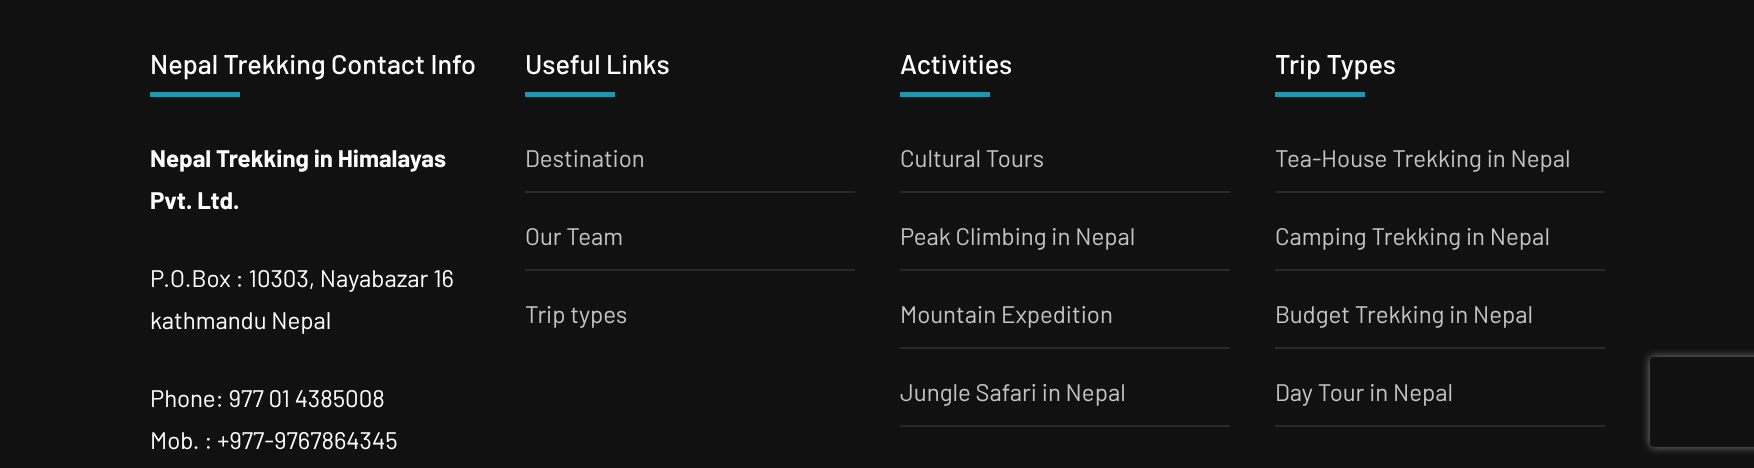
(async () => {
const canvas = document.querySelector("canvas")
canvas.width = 1754
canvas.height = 468
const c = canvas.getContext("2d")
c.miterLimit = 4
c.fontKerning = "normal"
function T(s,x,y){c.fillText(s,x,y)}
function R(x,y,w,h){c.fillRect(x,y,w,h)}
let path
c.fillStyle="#111"
R(0,0,1754,468)
c.font="500 27px Barlow"
c.fillStyle="#fff"
T("Nepal Trekking Contact Info",150,74)
c.fillStyle="#2095ae"
R(150,92,90,5)
c.font="bold 24px Barlow"
c.fillStyle="#fff"
T("Nepal Trekking in Himalayas",150,167)
T("Pvt. Ltd.",150,209)
c.font="24px Barlow"
T("P.O.Box : 10303, Nayabazar 16",150,287)
T("kathmandu Nepal",150,329)
T("Phone: 977 01 4385008",150,407)
T("Mob. : +977-9767864345",150,449)
c.font="500 27px Barlow"
T("Useful Links",525,74)
c.fillStyle="#2095ae"
R(525,92,90,5)
c.fillStyle="#292929"
R(525,191,330,2)
c.font="24px Barlow"
c.fillStyle="#c4c4c4"
T("Destination",525,167)
c.fillStyle="#292929"
R(525,269,330,2)
c.fillStyle="#c4c4c4"
T("Our Team",525,245)
T("Trip types",525,323)
c.font="500 27px Barlow"
c.fillStyle="#fff"
T("Activities",900,74)
c.fillStyle="#2095ae"
R(900,92,90,5)
c.fillStyle="#292929"
R(900,191,330,2)
c.font="24px Barlow"
c.fillStyle="#c4c4c4"
T("Cultural Tours",900,167)
c.fillStyle="#292929"
R(900,269,330,2)
c.fillStyle="#c4c4c4"
T("Peak Climbing in Nepal",900,245)
c.fillStyle="#292929"
R(900,347,330,2)
c.fillStyle="#c4c4c4"
T("Mountain Expedition",900,323)
c.fillStyle="#292929"
R(900,425,330,2)
c.fillStyle="#c4c4c4"
T("Jungle Safari in Nepal",900,401)
c.font="500 27px Barlow"
c.fillStyle="#fff"
T("Trip Types",1275,74)
c.fillStyle="#2095ae"
R(1275,92,90,5)
c.fillStyle="#292929"
R(1275,191,330,2)
c.font="24px Barlow"
c.fillStyle="#c4c4c4"
T("Tea-House Trekking in Nepal",1275,167)
c.fillStyle="#292929"
R(1275,269,330,2)
c.fillStyle="#c4c4c4"
T("Camping Trekking in Nepal",1275,245)
c.fillStyle="#292929"
R(1275,347,330,2)
c.fillStyle="#c4c4c4"
T("Budget Trekking in Nepal",1275,323)
c.fillStyle="#292929"
R(1275,425,330,2)
c.fillStyle="#c4c4c4"
T("Day Tour in Nepal",1275,401)
c.save()
path = new Path2D("M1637 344h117v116h-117zm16 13h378c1.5 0 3 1.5 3 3v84c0 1.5-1.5 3-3 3h-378c-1.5 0-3-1.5-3-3v-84c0-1.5 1.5-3 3-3z")
c.clip(path,"evenodd")
c.fillStyle="#808080"
c.filter="blur(4px)"
c.beginPath()
c.roundRect(1650,357,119,90,3)
c.fill()
c.filter="none"
c.restore()
})()
